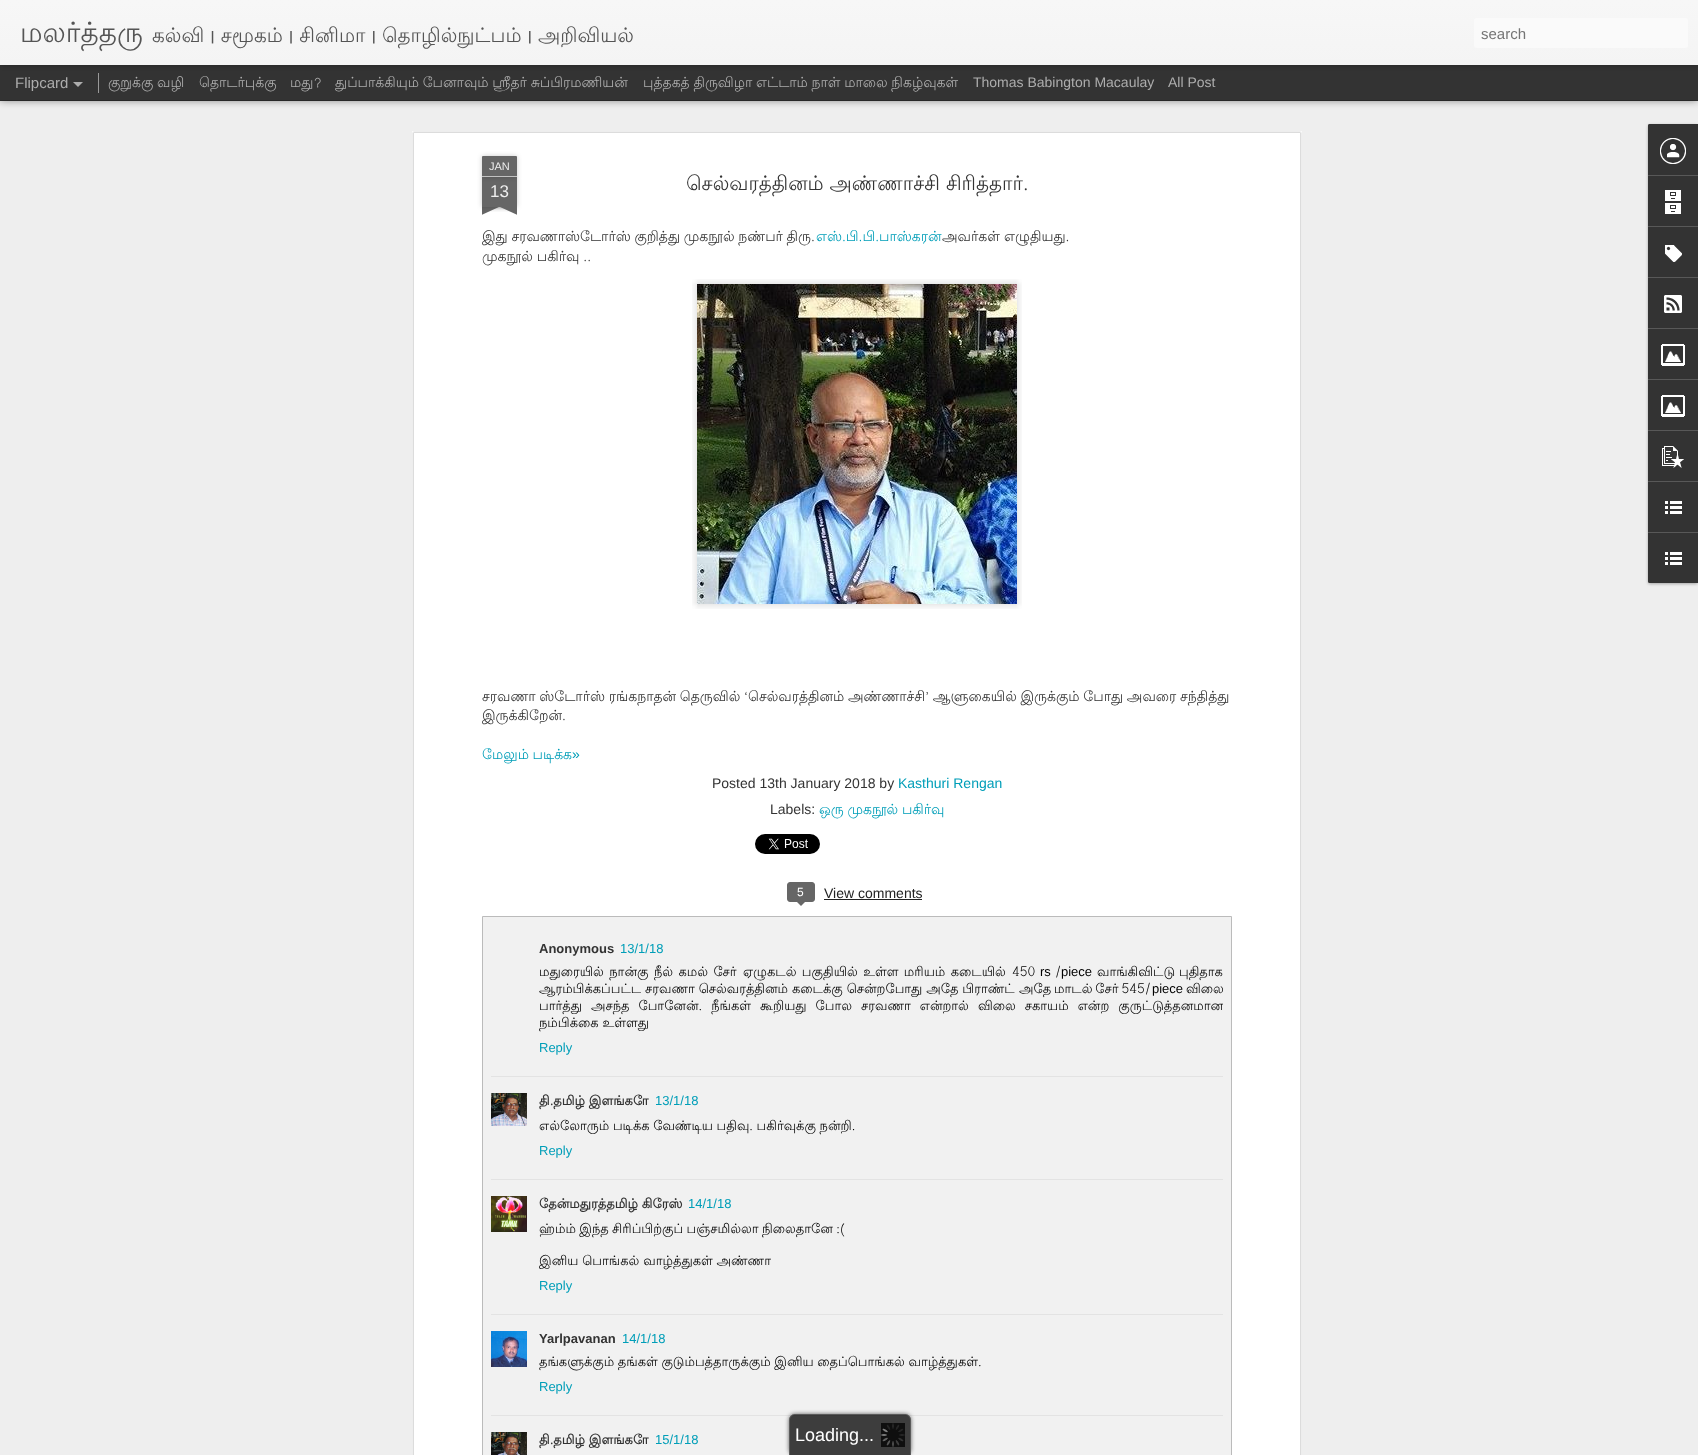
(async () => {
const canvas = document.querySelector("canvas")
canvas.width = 1698
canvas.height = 1455
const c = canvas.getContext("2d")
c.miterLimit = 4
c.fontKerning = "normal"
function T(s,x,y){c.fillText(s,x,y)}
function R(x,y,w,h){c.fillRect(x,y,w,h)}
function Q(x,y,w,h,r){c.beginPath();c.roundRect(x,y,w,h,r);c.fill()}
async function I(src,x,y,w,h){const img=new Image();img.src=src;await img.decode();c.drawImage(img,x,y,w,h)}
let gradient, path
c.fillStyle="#333"
R(0,0,1698,1455)
c.fillStyle="#eee"
R(0,101,1698,1354)
c.fillStyle="#00000080"
c.filter="blur(4px)"
c.beginPath()
c.rect(0,65,1698,35)
c.fill()
c.filter="none"
c.fillStyle="#333"
R(0,65,1698,35)
c.fillStyle="#999"
R(98,73,1,20)
c.fillStyle="#0000004d"
c.filter="blur(2.5px)"
c.beginPath()
c.rect(0,0,1698,65)
c.fill()
c.filter="none"
gradient = c.createLinearGradient(0,0,0,65)
gradient.addColorStop(0,"#f7f7f7")
gradient.addColorStop(1,"#f4f4f4")
c.fillStyle = gradient
R(0,0,1698,65)
c.font="28px Lohit Tamil"
c.fillStyle="#555"
T("மலர்த்தரு",20,42)
c.wordSpacing="-0.25px"
c.font="20px Lohit Tamil"
T("கல்வி | சமூகம் | சினிமா | தொழில்நுட்பம் | அறிவியல்",152,42)
c.fillStyle="#fafafa"
Q(1474,18,214,30,3)
c.wordSpacing="0px"
c.font="15px Liberation Sans"
c.fillStyle="#757575"
T("search",1481,39)
c.fillStyle="#adadad"
T("Flipcard",15,88)
path = new Path2D("M73 82h10l-5 5z")
c.fill(path)
c.wordSpacing="-0.5px"
c.font="14px Lohit Tamil"
T("குறுக்கு வழி",108,87)
c.wordSpacing="0px"
T("தொடர்புக்கு",199,87)
T("மது?",290,87)
c.wordSpacing="-0.5px"
T("துப்பாக்கியும் பேனாவும் ஸ்ரீதர் சுப்பிரமணியன்",335,87)
T("புத்தகத் திருவிழா எட்டாம் நாள் மாலை நிகழ்வுகள்",643,87)
c.wordSpacing="0px"
c.font="14px Liberation Sans"
T("Thomas Babington Macaulay",973,87)
T("All Post",1168,87)
c.fillStyle="#fff"
R(412,131,890,1324)
await I("1.png",412,131,890,1324)
c.fillStyle="#00000033"
c.filter="blur(2.5px)"
c.beginPath()
c.rect(482,177,35,30)
c.fill()
c.filter="none"
c.fillStyle="#666"
R(482,177,35,30)
c.fillStyle="#00000033"
c.filter="blur(2.5px)"
c.beginPath()
c.roundRect(482,156,35,21,1)
c.fill()
c.filter="none"
c.fillStyle="#666"
c.beginPath()
c.roundRect(482,156,35,21,[1,1,0,0])
c.fill()
c.fillStyle="#c2c2c2"
R(482,176,35,1)
c.font="11px Liberation Sans"
c.fillStyle="#eee"
T("JAN",489,170)
c.font="17px Liberation Sans"
T("13",490,197)
c.save()
c.beginPath()
c.rect(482,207,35,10)
c.clip()
c.fillStyle="#00000033"
c.filter="blur(2.5px)"
c.beginPath()
c.rect(473,197,50,10)
c.fill()
c.filter="none"
c.restore()
c.save()
c.beginPath()
c.rect(482,207,35,10)
c.clip()
c.fillStyle="#666"
path = new Path2D("M473 208l46-21l4 9l-46 21z")
c.fill(path)
c.restore()
c.save()
c.beginPath()
c.rect(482,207,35,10)
c.clip()
c.fillStyle="#00000033"
c.filter="blur(2.5px)"
c.beginPath()
c.rect(476,197,50,10)
c.fill()
c.filter="none"
c.restore()
c.save()
c.beginPath()
c.rect(482,207,35,10)
c.clip()
c.fillStyle="#666"
path = new Path2D("M480 187l46 21l-4 9l-46-21z")
c.fill(path)
c.restore()
c.font="20px Lohit Tamil"
c.fillStyle="#333"
T("செல்வரத்தினம் அண்ணாச்சி சிரித்தார்.",686,190)
c.wordSpacing="-0.5px"
c.font="14px Lohit Tamil"
T("இது சரவணாஸ்டோர்ஸ் குறித்து முகநூல் நண்பர் திரு.",482,241)
c.wordSpacing="0px"
c.fillStyle="#009eb8"
T("எஸ்.பி.பி.பாஸ்கரன்",816,241)
c.fillStyle="#333"
T("அவர்கள் எழுதியது.",942,241)
c.wordSpacing="-0.25px"
T("முகநூல் பகிர்வு ..",482,261)
await I("2.png",692,279,330,330)
c.wordSpacing="-0.5px"
T("சரவணா ஸ்டோர்ஸ் ரங்கநாதன் தெருவில் ‘செல்வரத்தினம் அண்ணாச்சி’ ஆளுகையில் இருக்கும் போது அவரை சந்தித்து",482,701)
c.wordSpacing="0px"
T("இருக்கிறேன்.",482,720)
c.wordSpacing="-0.5px"
c.fillStyle="#009eb8"
T("மேலும் படிக்க",482,759)
c.wordSpacing="0px"
c.font="14px Liberation Sans"
T("»",572,759)
c.fillStyle="#333"
T("Posted 13th January 2018 by",712,788)
c.fillStyle="#009eb8"
T("Kasthuri Rengan",898,788)
c.fillStyle="#333"
T("Labels:",770,814)
c.wordSpacing="-0.5px"
c.font="14px Lohit Tamil"
c.fillStyle="#009eb8"
T("ஒரு முகநூல் பகிர்வு",819,814)
await I("3.png",755,834,65,20)
c.fillStyle="#666"
c.beginPath()
c.roundRect(787.5,882.5,27,19,2.5)
c.fill()
c.strokeStyle="#666"
c.stroke()
c.wordSpacing="0px"
c.font="12px Liberation Sans"
c.fillStyle="#fff"
T("5",797,896)
c.fillStyle="#666"
path = new Path2D("M796 901h10l-5 5z")
c.fill(path)
c.font="14px Liberation Sans"
c.fillStyle="#222"
T("View comments",824,898)
R(824,899,98,1)
c.fillStyle="#f1f1f1"
c.beginPath()
c.rect(482.5,916.5,749,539)
c.fill()
c.strokeStyle="#bbb"
c.stroke()
c.fillStyle="#e3e3e3"
R(491,1076,732,1)
c.font="bold 13px Liberation Sans"
c.fillStyle="#333"
T("Anonymous",539,953)
c.font="13px Liberation Sans"
c.fillStyle="#009eb8"
T("13/1/18",620,953)
c.wordSpacing="1.5px"
c.font="13px Lohit Tamil"
c.fillStyle="#000"
T("மதுரையில் நான்கு நீல் கமல் சேர்",539,976)
T("ஏழுகடல் பகுதியில் உள்ள மரியம் கடையில்",743,976)
c.wordSpacing="0px"
T("450",1012,976)
c.font="13px Liberation Sans"
T("rs",1040,976)
c.font="13px Lohit Tamil"
T("/",1055,976)
c.font="13px Liberation Sans"
T("piece",1061,976)
c.font="13px Lohit Tamil"
T("வாங்கிவிட்டு",1097,976)
T("புதிதாக",1179,976)
T("ஆரம்பிக்கப்பட்ட சரவணா செல்வரத்தினம் கடைக்கு சென்றபோது அதே பிராண்ட்",539,993)
c.wordSpacing="-1px"
T("அதே மாடல் சேர் 545/",1019,993)
c.wordSpacing="0px"
c.font="13px Liberation Sans"
T("piece",1152,993)
c.font="13px Lohit Tamil"
T("விலை",1186,993)
c.wordSpacing="5.1px"
T("பார்த்து அசந்த போனேன். நீங்கள் கூறியது போல சரவணா என்றால் விலை சகாயம் என்ற குருட்டுத்தனமான",539,1010)
c.wordSpacing="0px"
T("நம்பிக்கை உள்ளது",539,1027)
c.font="13px Liberation Sans"
c.fillStyle="#009eb8"
T("Reply",539,1052)
c.fillStyle="#e3e3e3"
R(491,1179,732,1)
await I("4.png",491,1093,36,33)
c.font="bold 13px Lohit Tamil"
c.fillStyle="#333"
T("தி.தமிழ் இளங்கோ",539,1105)
c.font="13px Liberation Sans"
c.fillStyle="#009eb8"
T("13/1/18",655,1105)
c.wordSpacing="-0.25px"
c.font="13px Lohit Tamil"
c.fillStyle="#000"
T("எல்லோரும் படிக்க வேண்டிய பதிவு. பகிர்வுக்கு நன்றி.",539,1130)
c.wordSpacing="0px"
c.font="13px Liberation Sans"
c.fillStyle="#009eb8"
T("Reply",539,1155)
c.fillStyle="#e3e3e3"
R(491,1314,732,1)
await I("5.png",491,1196,36,36)
c.font="bold 13px Lohit Tamil"
c.fillStyle="#333"
T("தேன்மதுரத்தமிழ் கிரேஸ்",539,1208)
c.font="13px Liberation Sans"
c.fillStyle="#009eb8"
T("14/1/18",688,1208)
c.wordSpacing="-0.5px"
c.font="13px Lohit Tamil"
c.fillStyle="#000"
T("ஹ்ம்ம் இந்த சிரிப்பிற்குப் பஞ்சமில்லா நிலைதானே :(",539,1233)
c.wordSpacing="0px"
T("இனிய பொங்கல் வாழ்த்துகள் அண்ணா",539,1265)
c.font="13px Liberation Sans"
c.fillStyle="#009eb8"
T("Reply",539,1290)
c.fillStyle="#e3e3e3"
R(491,1415,732,1)
await I("6.png",491,1331,36,36)
c.font="bold 13px Liberation Sans"
c.fillStyle="#333"
T("Yarlpavanan",539,1343)
c.font="13px Liberation Sans"
c.fillStyle="#009eb8"
T("14/1/18",622,1343)
c.wordSpacing="-0.25px"
c.font="13px Lohit Tamil"
c.fillStyle="#000"
T("தங்களுக்கும் தங்கள் குடும்பத்தாருக்கும் இனிய தைப்பொங்கல் வாழ்த்துகள்.",539,1366)
c.wordSpacing="0px"
c.font="13px Liberation Sans"
c.fillStyle="#009eb8"
T("Reply",539,1391)
await I("7.png",491,1432,36,23)
c.font="bold 13px Lohit Tamil"
c.fillStyle="#333"
T("தி.தமிழ் இளங்கோ",539,1444)
c.font="13px Liberation Sans"
c.fillStyle="#009eb8"
T("15/1/18",655,1444)
c.fillStyle="#0000004d"
c.filter="blur(1.5px)"
c.beginPath()
c.roundRect(1648,125,50,459,2)
c.fill()
c.filter="none"
c.fillStyle="#333"
c.beginPath()
c.roundRect(1648,124,50,459,[2,0,0,2])
c.fill()
c.beginPath()
c.roundRect(1648,124,50,51,[2,0,0,0])
c.fill()
await I("8.png",1660,138,26,26)
c.fillStyle="#585858"
R(1648,175,50,1)
await I("9.png",1665,190,16,24)
R(1648,226,50,1)
await I("10.png",1665,245,17,17)
R(1648,277,50,1)
await I("11.png",1664,295,18,18)
R(1648,328,50,1)
await I("12.png",1661,344,24,22)
R(1648,379,50,1)
await I("12.png",1661,395,24,22)
R(1648,430,50,1)
await I("13.png",1662,446,22,22)
R(1648,481,50,1)
await I("14.png",1665,501,17,13)
c.fillStyle="#333"
c.beginPath()
c.roundRect(1648,532,50,51,[0,0,0,2])
c.fill()
c.fillStyle="#585858"
R(1648,532,50,1)
await I("14.png",1665,552,17,13)
c.save()
path = new Path2D("M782 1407h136v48h-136zm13 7h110c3.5 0 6 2.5 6 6v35h-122v-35c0-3.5 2.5-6 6-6z")
c.clip(path,"evenodd")
c.fillStyle="#333333bf"
c.filter="blur(2px)"
c.beginPath()
c.roundRect(789,1414,122,41,6)
c.fill()
c.filter="none"
c.restore()
c.fillStyle="#000000bf"
c.beginPath()
c.roundRect(789,1414,122,41,[6,6,0,0])
c.fill()
c.fillStyle="#666666bf"
path = new Path2D("M795 1414h110c3 0 6 3 6 6v35h-122v-35c0-3 3-6 6-6zm0 1h110c3 0 5 2 5 5v35h-120v-35c0-3 2-5 5-5z")
c.fill(path,"evenodd")
await I("15.png",881,1423,24,24)
c.font="18px Liberation Sans"
c.fillStyle="#fff"
T("Loading...",795,1441)
})()
